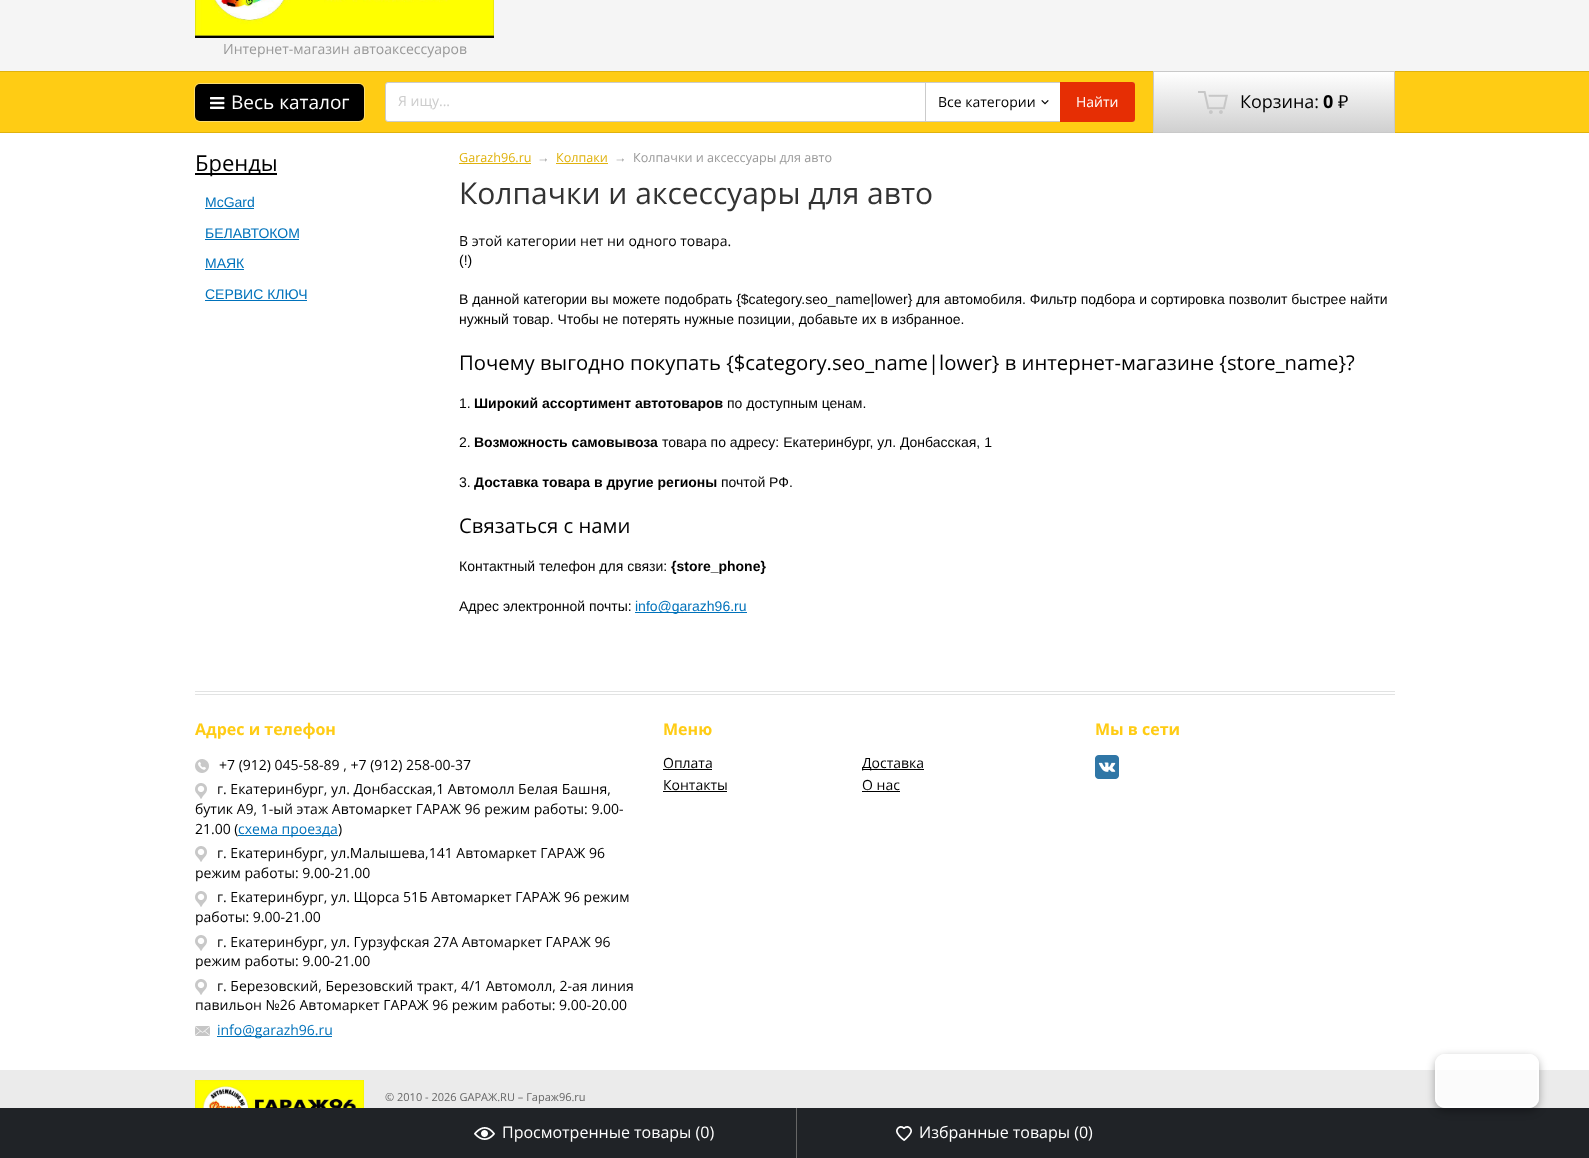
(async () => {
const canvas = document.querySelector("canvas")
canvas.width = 1589
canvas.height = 1158
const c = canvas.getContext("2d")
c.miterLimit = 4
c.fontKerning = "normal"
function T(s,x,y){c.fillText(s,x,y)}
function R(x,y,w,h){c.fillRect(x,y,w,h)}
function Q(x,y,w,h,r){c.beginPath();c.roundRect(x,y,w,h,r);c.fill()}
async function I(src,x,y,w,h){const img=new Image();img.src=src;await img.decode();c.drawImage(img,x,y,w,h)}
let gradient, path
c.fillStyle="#fff"
R(0,0,1589,1158)
c.fillStyle="#f5f5f5"
R(0,0,1589,71)
await I("1.png",195,0,299,38)
c.font="14px Open Sans"
c.fillStyle="#999"
T("Интернет-магазин автоаксессуаров",223,54)
c.fillStyle="#ffcc14"
R(0,72,1589,60)
c.fillStyle="#e0b20d"
R(0,71,1589,1)
R(0,132,1589,1)
c.beginPath()
c.roundRect(194.5,83.5,170,38,5.5)
c.strokeStyle="#fbdd72"
c.stroke()
c.fillStyle="#000"
Q(195,84,169,37,5)
await I("2.png",210,97,15,12)
c.font="19px Open Sans"
c.fillStyle="#fff"
T("Весь каталог",231,109)
c.beginPath()
c.roundRect(385.5,82.5,749,39,2.5)
c.fill()
c.strokeStyle="#cbcbcb"
c.stroke()
c.font="14px Open Sans"
c.fillStyle="#ccc"
T("Я ищу...",398,106)
c.fillStyle="#cbcbcb"
R(925,83,1,38)
c.fillStyle="#000"
T("Все категории",938,107)
await I("3.png",1041,100,8,5)
c.fillStyle="#e62e04"
c.beginPath()
c.roundRect(1060,82,75,40,[0,3,3,0])
c.fill()
c.fillStyle="#fff"
T("Найти",1076,107)
gradient = c.createLinearGradient(1274,72,1274,132)
gradient.addColorStop(0,"#fff")
gradient.addColorStop(1,"#d0d0d0")
c.fillStyle = gradient
R(1154,72,240,60)
c.strokeStyle="#c9c9c9"
c.strokeRect(1153.5,71.5,241,61)
await I("4.png",1198,91,30,23)
c.font="18px Open Sans"
c.fillStyle="#000"
T("Корзина:",1240,108)
c.font="bold 18px Open Sans"
T("0",1323,108)
c.font="18px Noto Sans"
T("₽",1338,108)
R(195,173,82,2)
c.font="22px Open Sans"
T("Бренды",195,171)
c.font="14px Liberation Sans"
c.fillStyle="#0072bb"
T("McGard",205,207)
R(205,208,49,1)
T("БЕЛАВТОКОМ",205,238)
R(205,239,94,1)
T("МАЯК",205,268)
R(205,269,39,1)
T("СЕРВИС КЛЮЧ",205,299)
R(205,300,102,1)
c.font="12.6px Open Sans"
c.fillStyle="#e0b20d"
T("Garazh96.ru",459,162)
R(459,163,72,1)
c.font="12.6px Liberation Sans"
c.fillStyle="#999"
T("→",537,162)
c.font="12.6px Open Sans"
c.fillStyle="#e0b20d"
T("Колпаки",556,162)
R(556,163,52,1)
c.font="12.6px Liberation Sans"
c.fillStyle="#999"
T("→",614,162)
c.font="12.6px Open Sans"
T("Колпачки и аксессуары для авто",633,162)
c.font="30px Open Sans"
c.fillStyle="#333"
T("Колпачки и аксессуары для авто",459,204)
c.font="14px Open Sans"
c.fillStyle="#000"
T("В этой категории нет ни одного товара.",459,246)
c.font="14px Liberation Sans"
T("(!)",459,265)
T("В данной категории вы можете подобрать {$category.seo_name|lower} для автомобиля. Фильтр подбора и сортировка позволит быстрее найти",459,304)
T("нужный товар. Чтобы не потерять нужные позиции, добавьте их в избранное.",459,324)
c.font="20.3px Open Sans"
T("Почему выгодно покупать {$category.seo_name|lower} в интернет-магазине {store_name}?",459,370)
c.font="14px Liberation Sans"
T("1.",459,408)
c.font="bold 14px Liberation Sans"
T("Широкий ассортимент автотоваров",474,408)
c.font="14px Liberation Sans"
T("по доступным ценам.",727,408)
T("2.",459,447)
c.font="bold 14px Liberation Sans"
T("Возможность самовывоза",474,447)
c.font="14px Liberation Sans"
T("товара по адресу: Екатеринбург, ул. Донбасская, 1",662,447)
T("3.",459,487)
c.font="bold 14px Liberation Sans"
T("Доставка товара в другие регионы",474,487)
c.font="14px Liberation Sans"
T("почтой РФ.",721,487)
c.font="20.3px Open Sans"
T("Связаться с нами",459,533)
c.font="14px Liberation Sans"
T("Контактный телефон для связи:",459,571)
c.font="bold 14px Liberation Sans"
T("{store_phone}",671,571)
c.font="14px Liberation Sans"
T("Адрес электронной почты:",459,611)
c.fillStyle="#0072bb"
R(635,612,112,1)
T("info@garazh96.ru",635,611)
c.fillStyle="#ebebeb"
R(0,1070,1589,38)
c.fillStyle="#202327"
R(0,1108,1589,50)
c.save()
path = new Path2D("M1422 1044h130v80h-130zm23 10h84c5.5 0 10 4.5 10 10v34c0 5.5-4.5 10-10 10h-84c-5.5 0-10-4.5-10-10v-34c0-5.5 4.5-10 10-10z")
c.clip(path,"evenodd")
c.fillStyle="#00000052"
c.filter="blur(4px)"
c.beginPath()
c.roundRect(1435,1057,104,54,10)
c.fill()
c.filter="none"
c.restore()
c.fillStyle="#ffffffcc"
Q(1435,1054,104,54,10)
c.beginPath()
c.roundRect(1436,1055,102,52,9)
c.strokeStyle="#ffffffcc"
c.lineWidth=2
c.stroke()
c.fillStyle="#e2e3e3"
R(195,691,1200,1)
R(195,694,1200,1)
c.font="bold 16px Open Sans"
c.fillStyle="#ffcc14"
T("Адрес и телефон",195,735)
await I("5.png",195,759,14,14)
c.font="14px Open Sans"
c.fillStyle="#000"
T("+7 (912) 045-58-89 , +7 (912) 258-00-37",219,770)
await I("6.png",195,783,12,16)
T("г. Екатеринбург, ул. Донбасская,1 Автомолл Белая Башня,",217,794)
T("бутик А9, 1-ый этаж Автомаркет ГАРАЖ 96 режим работы: 9.00-",195,814)
T("21.00 (",195,834)
c.fillStyle="#0072bb"
R(238,835,100,1)
T("схема проезда",238,834)
c.fillStyle="#000"
T(")",338,834)
await I("6.png",195,846,12,16)
T("г. Екатеринбург, ул.Малышева,141 Автомаркет ГАРАЖ 96",217,858)
T("режим работы: 9.00-21.00",195,878)
await I("6.png",195,891,12,16)
T("г. Екатеринбург, ул. Щорса 51Б Автомаркет ГАРАЖ 96 режим",217,902)
T("работы: 9.00-21.00",195,922)
await I("6.png",195,935,12,16)
T("г. Екатеринбург, ул. Гурзуфская 27А Автомаркет ГАРАЖ 96",217,947)
T("режим работы: 9.00-21.00",195,966)
await I("6.png",195,979,12,16)
T("г. Березовский, Березовский тракт, 4/1 Автомолл, 2-ая линия",217,991)
T("павильон №26 Автомаркет ГАРАЖ 96 режим работы: 9.00-20.00",195,1010)
await I("7.png",195,1026,15,10)
c.fillStyle="#0072bb"
R(217,1036,115,1)
T("info@garazh96.ru",217,1035)
c.font="bold 16px Open Sans"
c.fillStyle="#ffcc14"
T("Меню",663,735)
c.font="14px Open Sans"
c.fillStyle="#000"
T("Оплата",663,768)
R(663,769,49,1)
R(862,769,62,1)
T("Доставка",862,768)
T("Контакты",663,790)
R(663,791,64,1)
T("О нас",862,790)
R(862,791,38,1)
c.font="bold 16px Open Sans"
c.fillStyle="#ffcc14"
T("Мы в сети",1095,735)
await I("8.png",1095,755,24,24)
await I("9.png",195,1080,169,28)
c.font="11px Open Sans"
c.fillStyle="#666"
T("© 2010 - 2026 GАРАЖ.RU – Гараж96.ru",385,1101)
await I("10.png",474,1127,21,13)
c.font="16px Open Sans"
c.fillStyle="#fff"
T("Просмотренные товары (0)",502,1138)
c.fillStyle="#666"
R(796,1108,1,50)
await I("11.png",896,1126,16,15)
c.fillStyle="#fff"
T("Избранные товары (0)",919,1138)
})()
